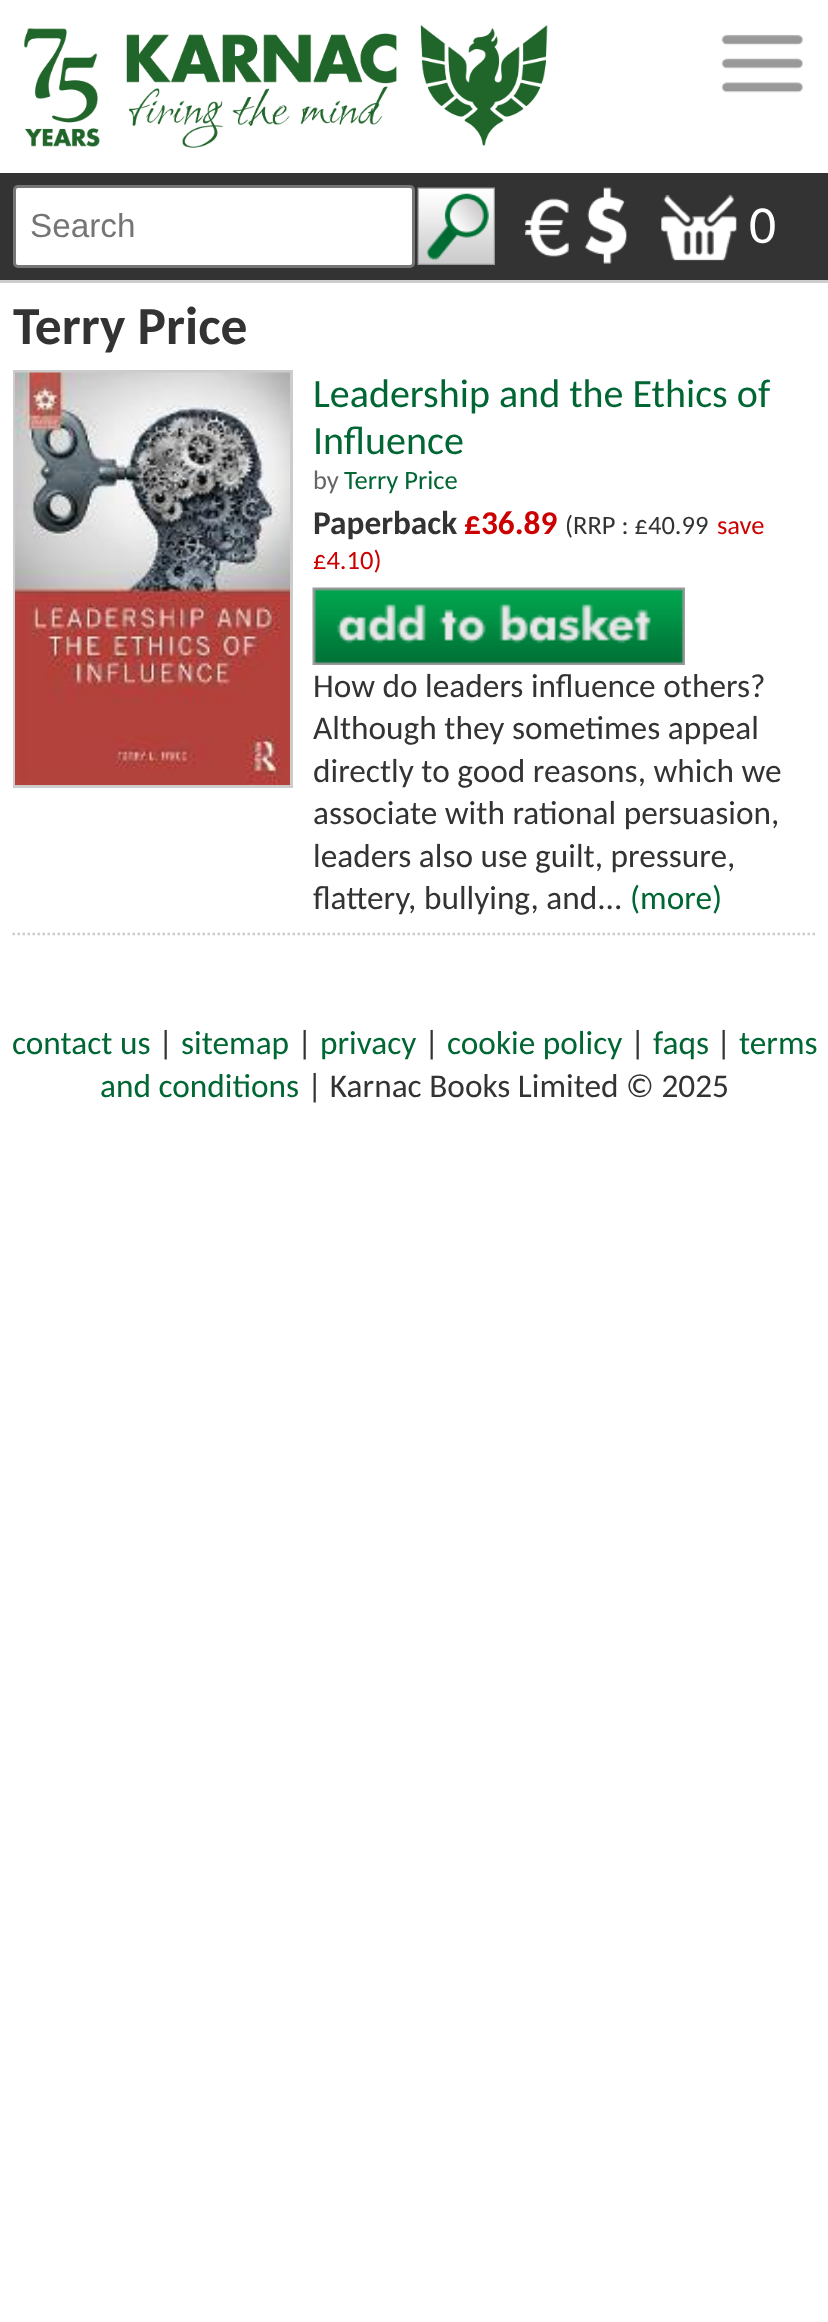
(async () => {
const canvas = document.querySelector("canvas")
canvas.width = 828
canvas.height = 2322
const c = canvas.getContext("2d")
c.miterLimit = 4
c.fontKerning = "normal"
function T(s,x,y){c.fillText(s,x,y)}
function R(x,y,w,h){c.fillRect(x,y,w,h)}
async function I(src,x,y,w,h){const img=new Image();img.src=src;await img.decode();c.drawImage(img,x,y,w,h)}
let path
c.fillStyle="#fff"
R(0,0,828,2322)
c.fillStyle="#ccc"
R(0,280,828,3)
await I("1.png",24,25,524,123)
await I("2.png",721,34,82,59)
c.fillStyle="#333"
R(0,173,828,107)
c.fillStyle="#fff"
c.beginPath()
c.roundRect(14.5,186.5,399,80,3.5)
c.fill()
c.strokeStyle="#767676"
c.lineWidth=3
c.stroke()
c.font="33.3px Liberation Sans"
c.fillStyle="#757575"
T("Search",30,237)
await I("3.png",417,187,78,78)
await I("4.png",524,198,45,59)
await I("5.png",584,187,43,77)
await I("6.png",661,194,76,67)
c.font="53.5px Carlito"
c.fillStyle="#fff"
T("0",749,243)
c.font="bold 53.5px Carlito"
c.fillStyle="#333"
T("Terry Price",13,344)
path = new Path2D("M12.5 934h805")
c.strokeStyle="#ccc"
c.lineWidth=2.5
c.setLineDash([2.5,2.5])
c.stroke(path)
c.lineWidth=3
c.setLineDash([])
c.strokeRect(14.5,371.5,277,415)
await I("7.png",15,372,275,413)
c.font="40px Carlito"
c.fillStyle="#063"
T("Leadership and the Ethics of",313,407)
T("Influence",313,454)
c.font="26.5px Carlito"
c.fillStyle="#666"
T("by",313,489)
c.fillStyle="#063"
T("Terry Price",344,489)
c.font="bold 33.3px Carlito"
c.fillStyle="#333"
T("Paperback",313,534)
c.fillStyle="#c00"
T("£36.89",464,534)
c.font="26.5px Carlito"
c.fillStyle="#333"
T("(RRP : £40.99",565,534)
c.fillStyle="#c00"
T("save",717,534)
T("£4.10)",313,569)
await I("8.png",312,587,373,78)
c.font="33.3px Carlito"
c.fillStyle="#333"
T("How do leaders influence others?",313,697)
T("Although they sometimes appeal",313,739)
T("directly to good reasons, which we",313,782)
T("associate with rational persuasion,",313,824)
T("leaders also use guilt, pressure,",313,867)
T("flattery, bullying, and...",313,909)
c.fillStyle="#063"
T("(more)",630,909)
T("contact us",12,1054)
c.fillStyle="#333"
T("|",158,1054)
c.fillStyle="#063"
T("sitemap",181,1054)
c.fillStyle="#333"
T("|",297,1054)
c.fillStyle="#063"
T("privacy",320,1054)
c.fillStyle="#333"
T("|",424,1054)
c.fillStyle="#063"
T("cookie policy",447,1054)
c.fillStyle="#333"
T("|",630,1054)
c.fillStyle="#063"
T("faqs",653,1054)
c.fillStyle="#333"
T("|",716,1054)
c.fillStyle="#063"
T("terms",739,1054)
T("and conditions",100,1097)
c.fillStyle="#333"
T("| Karnac Books Limited © 2025",307,1097)
})()
